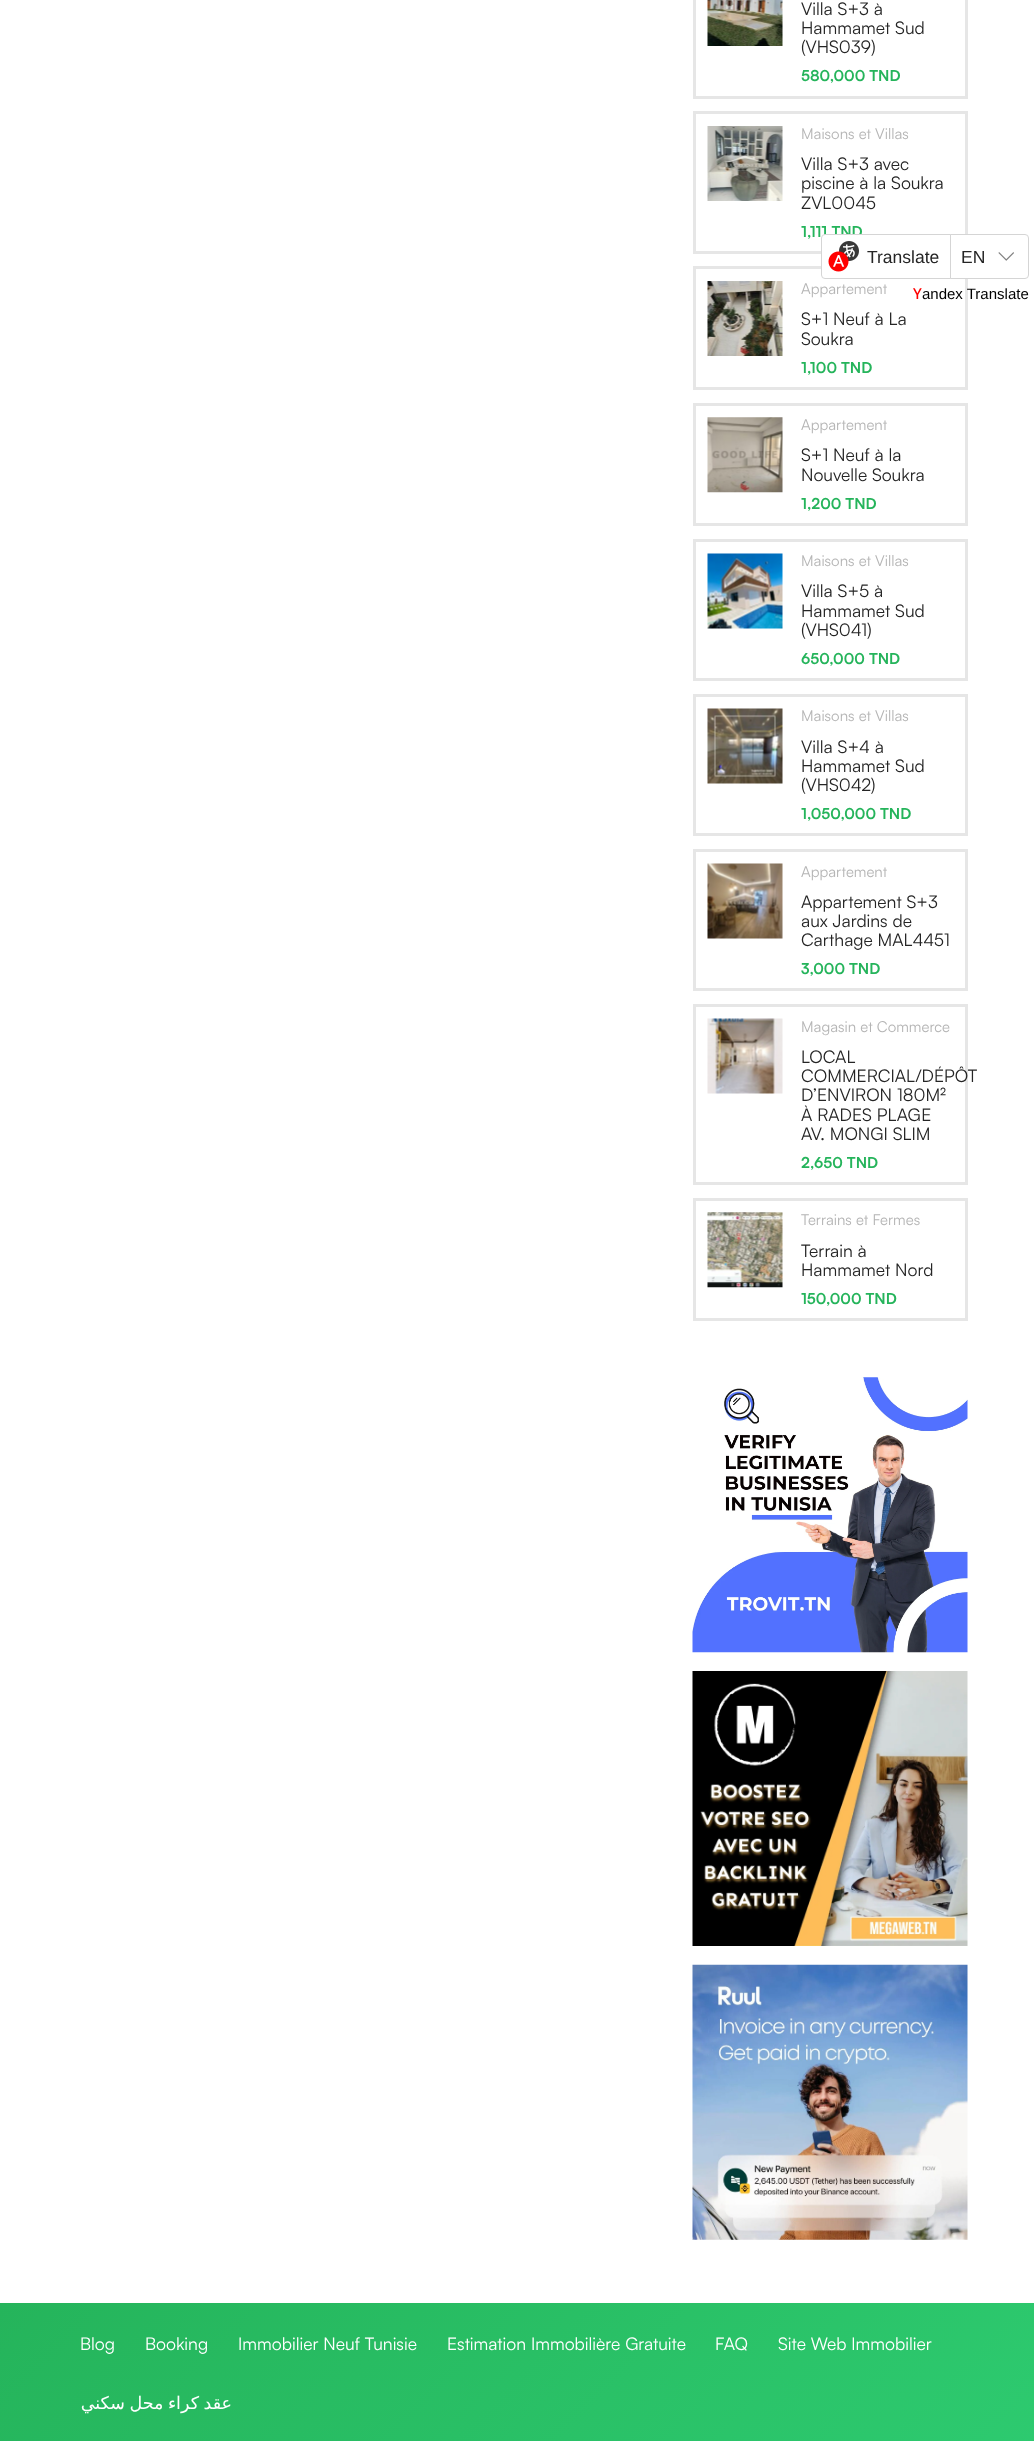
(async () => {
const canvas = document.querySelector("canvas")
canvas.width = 1034
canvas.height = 2441
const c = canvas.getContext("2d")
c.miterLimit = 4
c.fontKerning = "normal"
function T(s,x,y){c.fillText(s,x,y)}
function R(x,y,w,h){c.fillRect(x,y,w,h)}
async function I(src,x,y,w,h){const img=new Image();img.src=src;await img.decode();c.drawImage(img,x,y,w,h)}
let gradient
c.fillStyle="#fff"
R(0,0,1034,2441)
c.strokeStyle="#e6e6e6"
c.lineWidth=3
c.strokeRect(694.5,-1.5,272,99)
await I("1.png",707,0,76,46)
c.font="17.5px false"
c.fillStyle="#252525"
T("Villa S+3 à",801,15)
T("Hammamet Sud",801,34)
T("(VHS039)",801,53)
c.font="bold 15px false"
c.fillStyle="#25b45b"
T("580,000 TND",801,81)
c.strokeRect(694.5,112.5,272,140)
await I("2.png",707,126,76,75)
c.font="15px false"
c.fillStyle="#b5b5b5"
T("Maisons et Villas",801,139)
c.font="17.5px false"
c.fillStyle="#252525"
T("Villa S+3 avec",801,170)
T("piscine à la Soukra",801,189)
T("ZVL0045",801,209)
c.font="bold 15px false"
c.fillStyle="#25b45b"
T("1,111 TND",801,237)
c.strokeRect(694.5,267.5,272,121)
await I("3.png",707,281,76,75)
c.font="15px false"
c.fillStyle="#b5b5b5"
T("Appartement",801,294)
c.font="17.5px false"
c.fillStyle="#252525"
T("S+1 Neuf à La",801,325)
T("Soukra",801,345)
c.font="bold 15px false"
c.fillStyle="#25b45b"
T("1,100 TND",801,373)
c.strokeRect(694.5,404.5,272,120)
await I("4.png",707,417,76,76)
c.font="15px false"
c.fillStyle="#b5b5b5"
T("Appartement",801,430)
c.font="17.5px false"
c.fillStyle="#252525"
T("S+1 Neuf à la",801,461)
T("Nouvelle Soukra",801,481)
c.font="bold 15px false"
c.fillStyle="#25b45b"
T("1,200 TND",801,509)
c.strokeRect(694.5,540.5,272,139)
await I("5.png",707,553,76,76)
c.font="15px false"
c.fillStyle="#b5b5b5"
T("Maisons et Villas",801,566)
c.font="17.5px false"
c.fillStyle="#252525"
T("Villa S+5 à",801,597)
T("Hammamet Sud",801,617)
T("(VHS041)",801,636)
c.font="bold 15px false"
c.fillStyle="#25b45b"
T("650,000 TND",801,664)
c.strokeRect(694.5,695.5,272,139)
await I("6.png",707,708,76,76)
c.font="15px false"
c.fillStyle="#b5b5b5"
T("Maisons et Villas",801,721)
c.font="17.5px false"
c.fillStyle="#252525"
T("Villa S+4 à",801,753)
T("Hammamet Sud",801,772)
T("(VHS042)",801,791)
c.font="bold 15px false"
c.fillStyle="#25b45b"
T("1,050,000 TND",801,819)
c.strokeRect(694.5,850.5,272,139)
await I("7.png",707,863,76,76)
c.font="15px false"
c.fillStyle="#b5b5b5"
T("Appartement",801,877)
c.font="17.5px false"
c.fillStyle="#252525"
T("Appartement S+3",801,908)
T("aux Jardins de",801,927)
T("Carthage MAL4451",801,946)
c.font="bold 15px false"
c.fillStyle="#25b45b"
T("3,000 TND",801,974)
c.strokeRect(694.5,1005.5,272,178)
await I("8.png",707,1018,76,76)
c.font="15px false"
c.fillStyle="#b5b5b5"
T("Magasin et Commerce",801,1032)
c.font="17.5px false"
c.fillStyle="#252525"
T("LOCAL",801,1063)
T("COMMERCIAL/DÉPÔT",801,1082)
T("D’ENVIRON 180M²",801,1101)
T("À RADES PLAGE",801,1121)
T("AV. MONGI SLIM",801,1140)
c.font="bold 15px false"
c.fillStyle="#25b45b"
T("2,650 TND",801,1168)
c.strokeRect(694.5,1199.5,272,120)
await I("9.png",707,1212,76,76)
c.font="15px false"
c.fillStyle="#b5b5b5"
T("Terrains et Fermes",801,1225)
c.font="17.5px false"
c.fillStyle="#252525"
T("Terrain à",801,1257)
T("Hammamet Nord",801,1276)
c.font="bold 15px false"
c.fillStyle="#25b45b"
T("150,000 TND",801,1304)
await I("10.png",692,1377,276,276)
await I("11.png",692,1671,276,275)
await I("12.png",692,1964,276,276)
c.fillStyle="#fff"
c.beginPath()
c.roundRect(821.5,234.5,129,44,[3.5,0,0,3.5])
c.fill()
c.strokeStyle="#d5d5d5"
c.lineWidth=1
c.stroke()
await I("13.png",828,241,31,31)
c.font="17.5px Liberation Sans"
c.fillStyle="#252525"
T("Translate",867,263)
c.fillStyle="#fff"
c.beginPath()
c.roundRect(950.5,234.5,78,44,[0,3.5,3.5,0])
c.fill()
c.stroke()
c.fillStyle="#252525"
T("EN",961,263)
await I("14.png",998,252,16,9)
c.font="500 15px Noto Sans"
c.fillStyle="#f00"
T("Y",913,299)
c.font="15px Liberation Sans"
c.fillStyle="#000"
T("andex Translate",922,299)
gradient = c.createLinearGradient(196,2107,839,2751)
gradient.addColorStop(0,"#25b45b")
gradient.addColorStop(1,"#2ecc71")
c.fillStyle = gradient
R(0,2303,1034,138)
c.font="17.5px false"
c.fillStyle="#fff"
T("Blog",80,2350)
T("Booking",145,2350)
T("Immobilier Neuf Tunisie",238,2350)
T("Estimation Immobilière Gratuite",447,2350)
T("FAQ",715,2350)
T("Site Web Immobilier",778,2350)
c.wordSpacing="-1px"
c.direction="rtl"
c.font="17.5px DejaVu Sans"
T("عقد كراء محل سكني",232,2409)
})()
